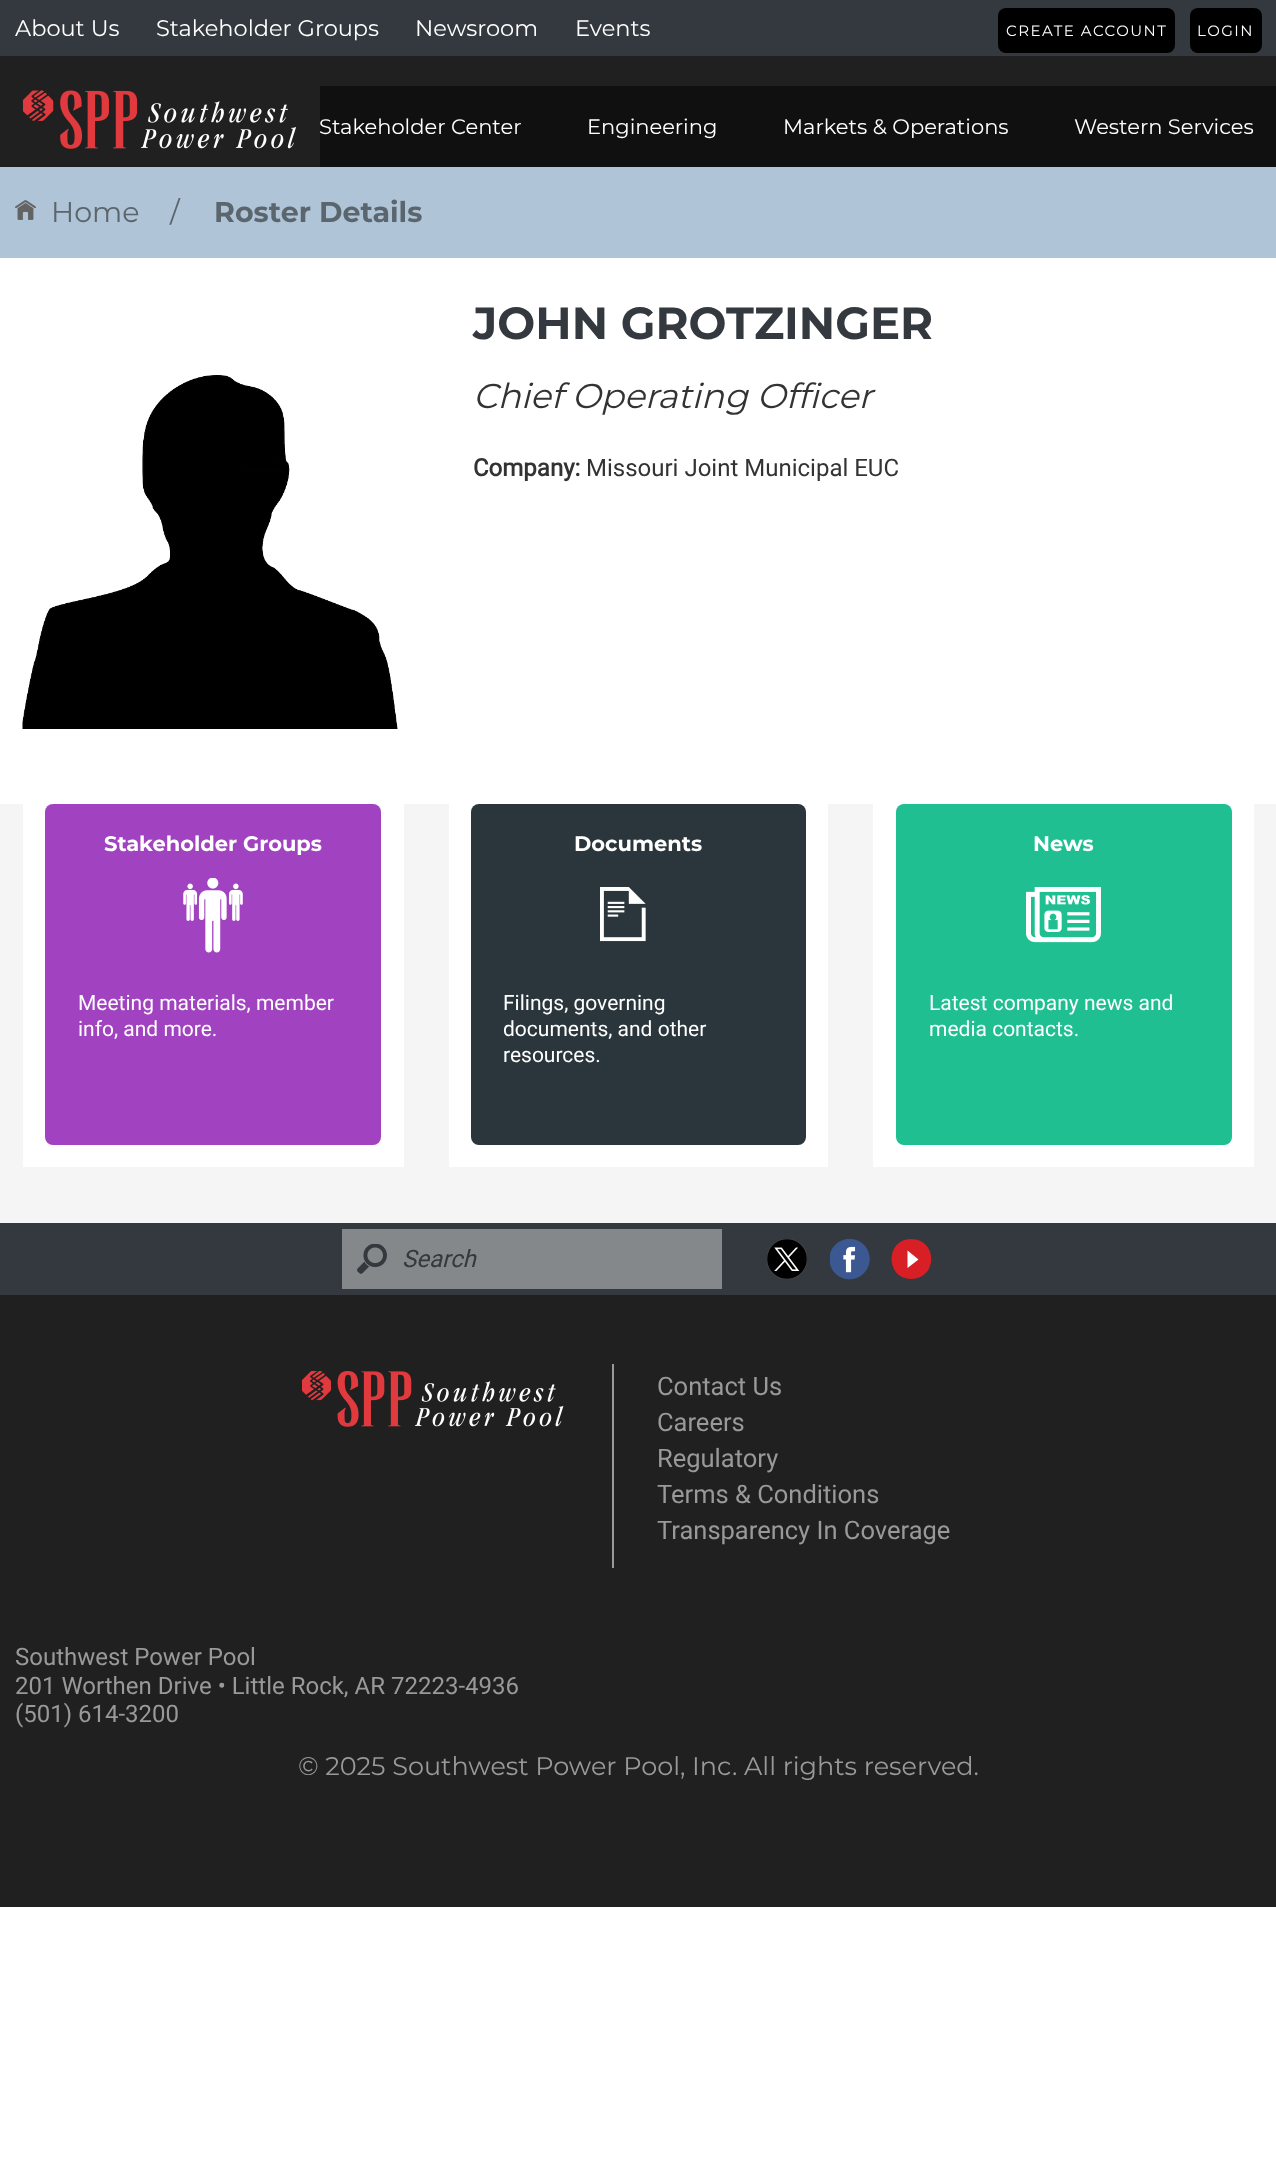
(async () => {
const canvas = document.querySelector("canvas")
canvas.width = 1276
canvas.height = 2167
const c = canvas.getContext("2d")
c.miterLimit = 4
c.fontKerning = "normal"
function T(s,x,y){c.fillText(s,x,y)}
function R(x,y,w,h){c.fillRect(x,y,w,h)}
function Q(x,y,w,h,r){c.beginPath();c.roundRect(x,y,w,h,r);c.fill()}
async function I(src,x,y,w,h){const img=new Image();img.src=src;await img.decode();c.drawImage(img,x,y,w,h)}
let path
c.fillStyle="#fff"
R(0,0,1276,2167)
c.fillStyle="#33393e"
R(0,0,1276,56)
c.font="22.5px Montserrat"
c.fillStyle="#fff"
T("About Us",15,36)
T("Stakeholder Groups",156,36)
T("Newsroom",415,36)
T("Events",575,36)
c.fillStyle="#000"
Q(998,8,177,45,8)
c.letterSpacing="1.5px"
c.font="15px Montserrat"
c.fillStyle="#fff"
T("CREATE ACCOUNT",1006,36)
c.fillStyle="#000"
Q(1190,8,72,45,8)
c.fillStyle="#fff"
T("LOGIN",1197,36)
c.fillStyle="#202020"
R(0,56,1276,111)
await I("1.png",23,90,273,59)
c.fillStyle="#101010"
R(320,86,956,81)
c.letterSpacing="0px"
c.font="21px Montserrat"
c.fillStyle="#fff"
T("Stakeholder Center",319,134)
T("Engineering",587,134)
T("Markets & Operations",783,134)
T("Western Services",1074,134)
c.fillStyle="#afc4d6"
R(0,167,1276,91)
await I("2.png",15,200,21,20)
c.font="28.5px Montserrat"
c.fillStyle="#5b656d"
T("Home",51,222)
T("/",170,222)
c.font="bold 28.5px Montserrat"
T("Roster Details",214,222)
c.font="bold 45px Montserrat"
c.fillStyle="#33393e"
T("JOHN GROTZINGER",473,339)
await I("3.png",22,375,376,354)
c.font="italic 34.5px Montserrat"
c.fillStyle="#333"
T("Chief Operating Officer",473,408)
c.font="bold 24px Roboto"
T("Company:",473,476)
c.font="24px Roboto"
T("Missouri Joint Municipal EUC",586,476)
c.fillStyle="#f5f5f5"
R(0,804,1276,419)
c.fillStyle="#fff"
R(23,804,381,363)
c.fillStyle="#a142c0"
Q(45,804,336,341,8)
c.font="bold 21px Montserrat"
c.fillStyle="#fff"
T("Stakeholder Groups",104,851)
await I("4.png",183,878,60,75)
c.font="21px Roboto"
T("Meeting materials, member",78,1010)
T("info, and more.",78,1036)
R(449,804,379,363)
c.fillStyle="#2a363b"
Q(471,804,335,341,8)
c.font="bold 21px Montserrat"
c.fillStyle="#fff"
T("Documents",574,851)
await I("5.png",600,887,46,55)
c.font="21px Roboto"
T("Filings, governing",503,1010)
T("documents, and other",503,1036)
T("resources.",503,1062)
R(873,804,381,363)
c.fillStyle="#1fbf92"
Q(896,804,336,341,8)
c.font="bold 21px Montserrat"
c.fillStyle="#fff"
T("News",1033,851)
await I("6.png",1026,887,75,56)
c.font="21px Roboto"
T("Latest company news and",929,1010)
T("media contacts.",929,1036)
c.fillStyle="#33393e"
R(0,1223,1276,72)
c.fillStyle="#85888b"
R(342,1229,380,60)
await I("7.png",357,1244,30,30)
c.font="italic 24px Roboto"
c.fillStyle="#33393e"
T("Search",402,1267)
await I("8.png",767,1239,40,41)
await I("9.png",830,1239,40,41)
c.fillStyle="#d91f26"
path = new Path2D("M911 1239c-26 0-26 40 0 40c27 0 27-40 0-40z")
c.fill(path)
c.fillStyle="#fff"
path = new Path2D("M907.5 1250.5v17.5l11-8.5")
c.fill(path,"evenodd")
c.fillStyle="#202020"
R(0,1295,1276,612)
await I("10.png",302,1371,262,56)
c.fillStyle="#999"
R(612,1364,2,204)
c.font="25.5px Roboto"
T("Contact Us",657,1395)
T("Careers",657,1431)
T("Regulatory",657,1467)
T("Terms & Conditions",657,1503)
T("Transparency In Coverage",657,1539)
c.font="24px Roboto"
T("Southwest Power Pool",15,1665)
T("201 Worthen Drive • Little Rock, AR 72223-4936",15,1694)
T("(501) 614-3200",15,1722)
c.font="25.5px Montserrat"
T("© 2025 Southwest Power Pool, Inc. All rights reserved.",298,1775)
})()
